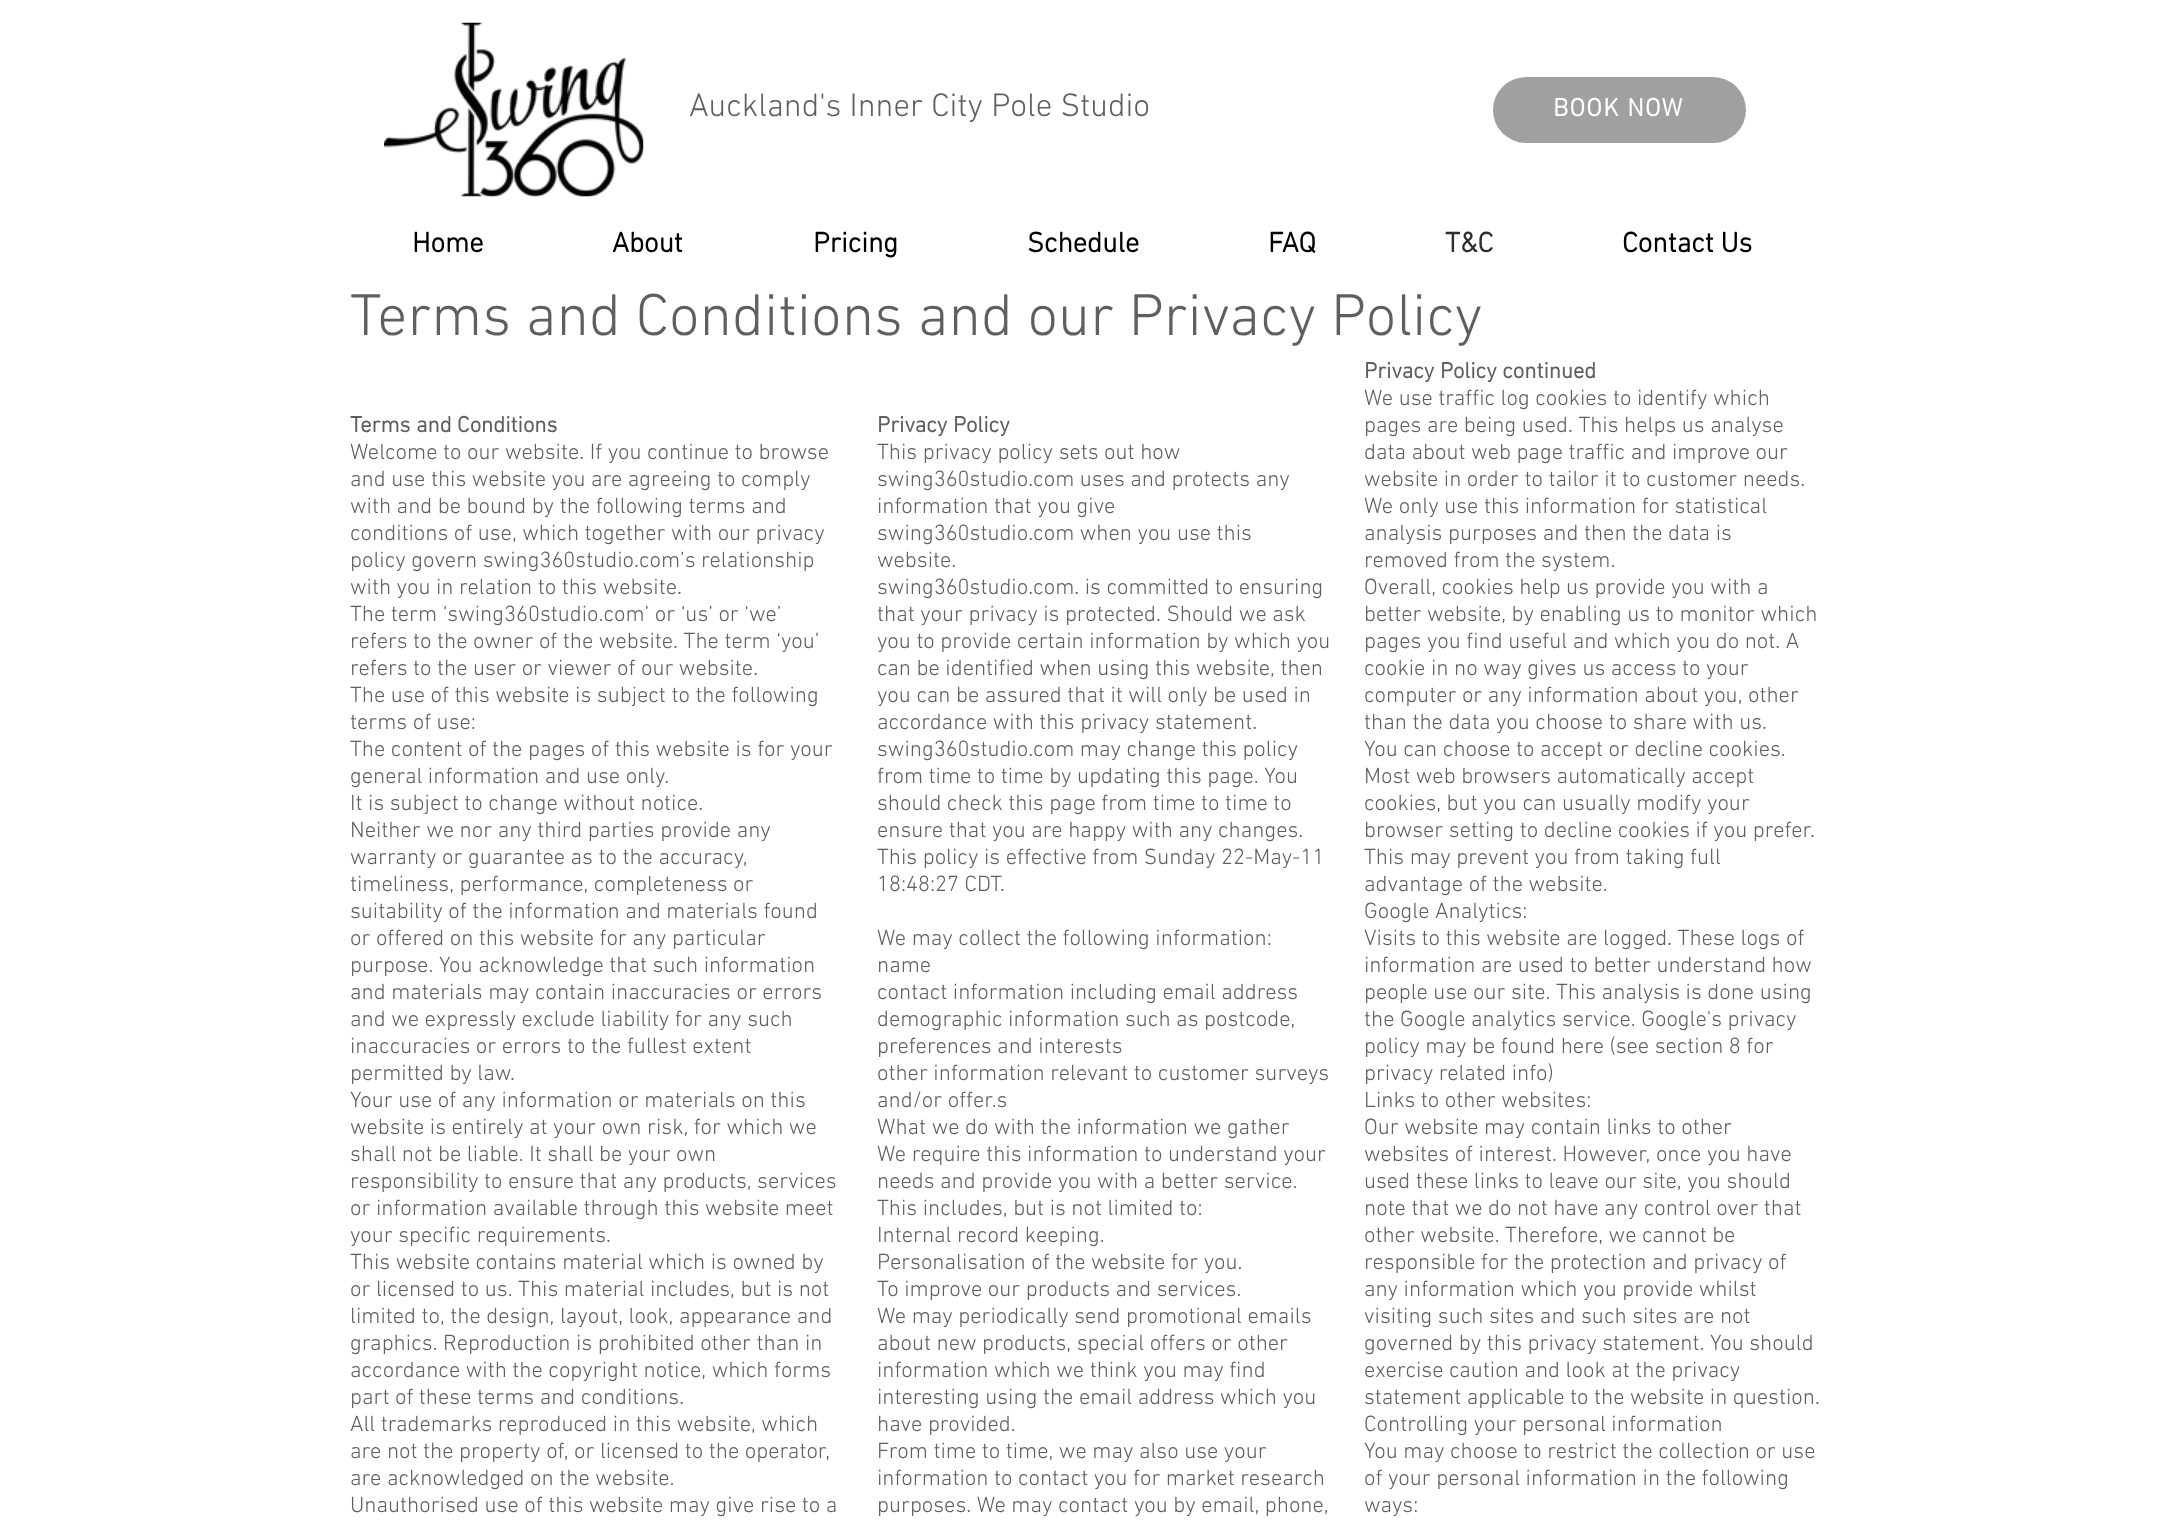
(async () => {
const canvas = document.querySelector("canvas")
canvas.width = 2170
canvas.height = 1534
const c = canvas.getContext("2d")
c.miterLimit = 4
c.fontKerning = "normal"
function T(s,x,y){c.fillText(s,x,y)}
function R(x,y,w,h){c.fillRect(x,y,w,h)}
function Q(x,y,w,h,r){c.beginPath();c.roundRect(x,y,w,h,r);c.fill()}
async function I(src,x,y,w,h){const img=new Image();img.src=src;await img.decode();c.drawImage(img,x,y,w,h)}
c.fillStyle="#fff"
R(0,0,2170,1534)
await I("1.png",384,22,260,175)
c.font="300 33px 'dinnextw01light'"
c.fillStyle="#605e5e"
T("Auckland's Inner City Pole Studio",689,116)
c.fillStyle="#a0a09f"
Q(1493,77,253,66,33)
c.letterSpacing="1.25px"
c.font="bold 25.5px 'dinnextw01light'"
c.fillStyle="#fff"
T("BOOK NOW",1553,116)
c.letterSpacing="0px"
c.font="bold 28.5px 'dinnextw01light'"
c.fillStyle="#000"
T("Home",412,252)
T("About",612,252)
T("Pricing",813,252)
T("Schedule",1027,252)
T("FAQ",1268,252)
c.fillStyle="#2f2e2e"
T("T&C",1445,252)
c.fillStyle="#000"
T("Contact Us",1622,252)
c.font="300 60px 'dinnextw01light'"
c.fillStyle="#605e5e"
T("Terms and Conditions and our Privacy Policy",350,335)
c.font="bold 22.5px 'dinnextw01light'"
T("Terms and Conditions",350,432)
c.font="300 22.5px 'dinnextw01light'"
T("Welcome to our website. If you continue to browse",350,459)
T("and use this website you are agreeing to comply",350,486)
T("with and be bound by the following terms and",350,513)
T("conditions of use, which together with our privacy",350,540)
T("policy govern swing360studio.com’s relationship",350,567)
T("with you in relation to this website.",350,594)
T("The term ‘swing360studio.com’ or ‘us’ or ‘we’",350,621)
T("refers to the owner of the website. The term ‘you’",350,648)
T("refers to the user or viewer of our website.",350,675)
T("The use of this website is subject to the following",350,702)
T("terms of use:",350,729)
T("The content of the pages of this website is for your",350,756)
T("general information and use only.",350,783)
T("It is subject to change without notice.",350,810)
T("Neither we nor any third parties provide any",350,837)
T("warranty or guarantee as to the accuracy,",350,864)
T("timeliness, performance, completeness or",350,891)
T("suitability of the information and materials found",350,918)
T("or offered on this website for any particular",350,945)
T("purpose. You acknowledge that such information",350,972)
T("and materials may contain inaccuracies or errors",350,999)
T("and we expressly exclude liability for any such",350,1026)
T("inaccuracies or errors to the fullest extent",350,1053)
T("permitted by law.",350,1080)
T("Your use of any information or materials on this",350,1107)
T("website is entirely at your own risk, for which we",350,1134)
T("shall not be liable. It shall be your own",350,1161)
T("responsibility to ensure that any products, services",350,1188)
T("or information available through this website meet",350,1215)
T("your specific requirements.",350,1242)
T("This website contains material which is owned by",350,1269)
T("or licensed to us. This material includes, but is not",350,1296)
T("limited to, the design, layout, look, appearance and",350,1323)
T("graphics. Reproduction is prohibited other than in",350,1350)
T("accordance with the copyright notice, which forms",350,1377)
T("part of these terms and conditions.",350,1404)
T("All trademarks reproduced in this website, which",350,1431)
T("are not the property of, or licensed to the operator,",350,1458)
T("are acknowledged on the website.",350,1485)
T("Unauthorised use of this website may give rise to a",350,1512)
c.font="bold 22.5px 'dinnextw01light'"
T("Privacy Policy",877,432)
c.font="300 22.5px 'dinnextw01light'"
T("This privacy policy sets out how",877,459)
T("swing360studio.com uses and protects any",877,486)
T("information that you give",877,513)
T("swing360studio.com when you use this",877,540)
T("website.",877,567)
T("swing360studio.com. is committed to ensuring",877,594)
T("that your privacy is protected. Should we ask",877,621)
T("you to provide certain information by which you",877,648)
T("can be identified when using this website, then",877,675)
T("you can be assured that it will only be used in",877,702)
T("accordance with this privacy statement.",877,729)
T("swing360studio.com may change this policy",877,756)
T("from time to time by updating this page. You",877,783)
T("should check this page from time to time to",877,810)
T("ensure that you are happy with any changes.",877,837)
T("This policy is effective from Sunday 22-May-11",877,864)
T("18:48:27 CDT.",877,891)
T("We may collect the following information:",877,945)
T("name",877,972)
T("contact information including email address",877,999)
T("demographic information such as postcode,",877,1026)
T("preferences and interests",877,1053)
T("other information relevant to customer surveys",877,1080)
T("and/or offer.s",877,1107)
T("What we do with the information we gather",877,1134)
T("We require this information to understand your",877,1161)
T("needs and provide you with a better service.",877,1188)
T("This includes, but is not limited to:",877,1215)
T("Internal record keeping.",877,1242)
T("Personalisation of the website for you.",877,1269)
T("To improve our products and services.",877,1296)
T("We may periodically send promotional emails",877,1323)
T("about new products, special offers or other",877,1350)
T("information which we think you may find",877,1377)
T("interesting using the email address which you",877,1404)
T("have provided.",877,1431)
T("From time to time, we may also use your",877,1458)
T("information to contact you for market research",877,1485)
T("purposes. We may contact you by email, phone,",877,1512)
c.font="bold 22.5px 'dinnextw01light'"
T("Privacy Policy continued",1364,378)
c.font="300 22.5px 'dinnextw01light'"
T("We use traffic log cookies to identify which",1364,405)
T("pages are being used. This helps us analyse",1364,432)
T("data about web page traffic and improve our",1364,459)
T("website in order to tailor it to customer needs.",1364,486)
T("We only use this information for statistical",1364,513)
T("analysis purposes and then the data is",1364,540)
T("removed from the system.",1364,567)
T("Overall, cookies help us provide you with a",1364,594)
T("better website, by enabling us to monitor which",1364,621)
T("pages you find useful and which you do not. A",1364,648)
T("cookie in no way gives us access to your",1364,675)
T("computer or any information about you, other",1364,702)
T("than the data you choose to share with us.",1364,729)
T("You can choose to accept or decline cookies.",1364,756)
T("Most web browsers automatically accept",1364,783)
T("cookies, but you can usually modify your",1364,810)
T("browser setting to decline cookies if you prefer.",1364,837)
T("This may prevent you from taking full",1364,864)
T("advantage of the website.",1364,891)
T("Google Analytics:",1364,918)
T("Visits to this website are logged. These logs of",1364,945)
T("information are used to better understand how",1364,972)
T("people use our site. This analysis is done using",1364,999)
T("the Google analytics service. Google's privacy",1364,1026)
T("policy may be found here (see section 8 for",1364,1053)
T("privacy related info)",1364,1080)
T("Links to other websites:",1364,1107)
T("Our website may contain links to other",1364,1134)
T("websites of interest. However, once you have",1364,1161)
T("used these links to leave our site, you should",1364,1188)
T("note that we do not have any control over that",1364,1215)
T("other website. Therefore, we cannot be",1364,1242)
T("responsible for the protection and privacy of",1364,1269)
T("any information which you provide whilst",1364,1296)
T("visiting such sites and such sites are not",1364,1323)
T("governed by this privacy statement. You should",1364,1350)
T("exercise caution and look at the privacy",1364,1377)
T("statement applicable to the website in question.",1364,1404)
T("Controlling your personal information",1364,1431)
T("You may choose to restrict the collection or use",1364,1458)
T("of your personal information in the following",1364,1485)
T("ways:",1364,1512)
})()
